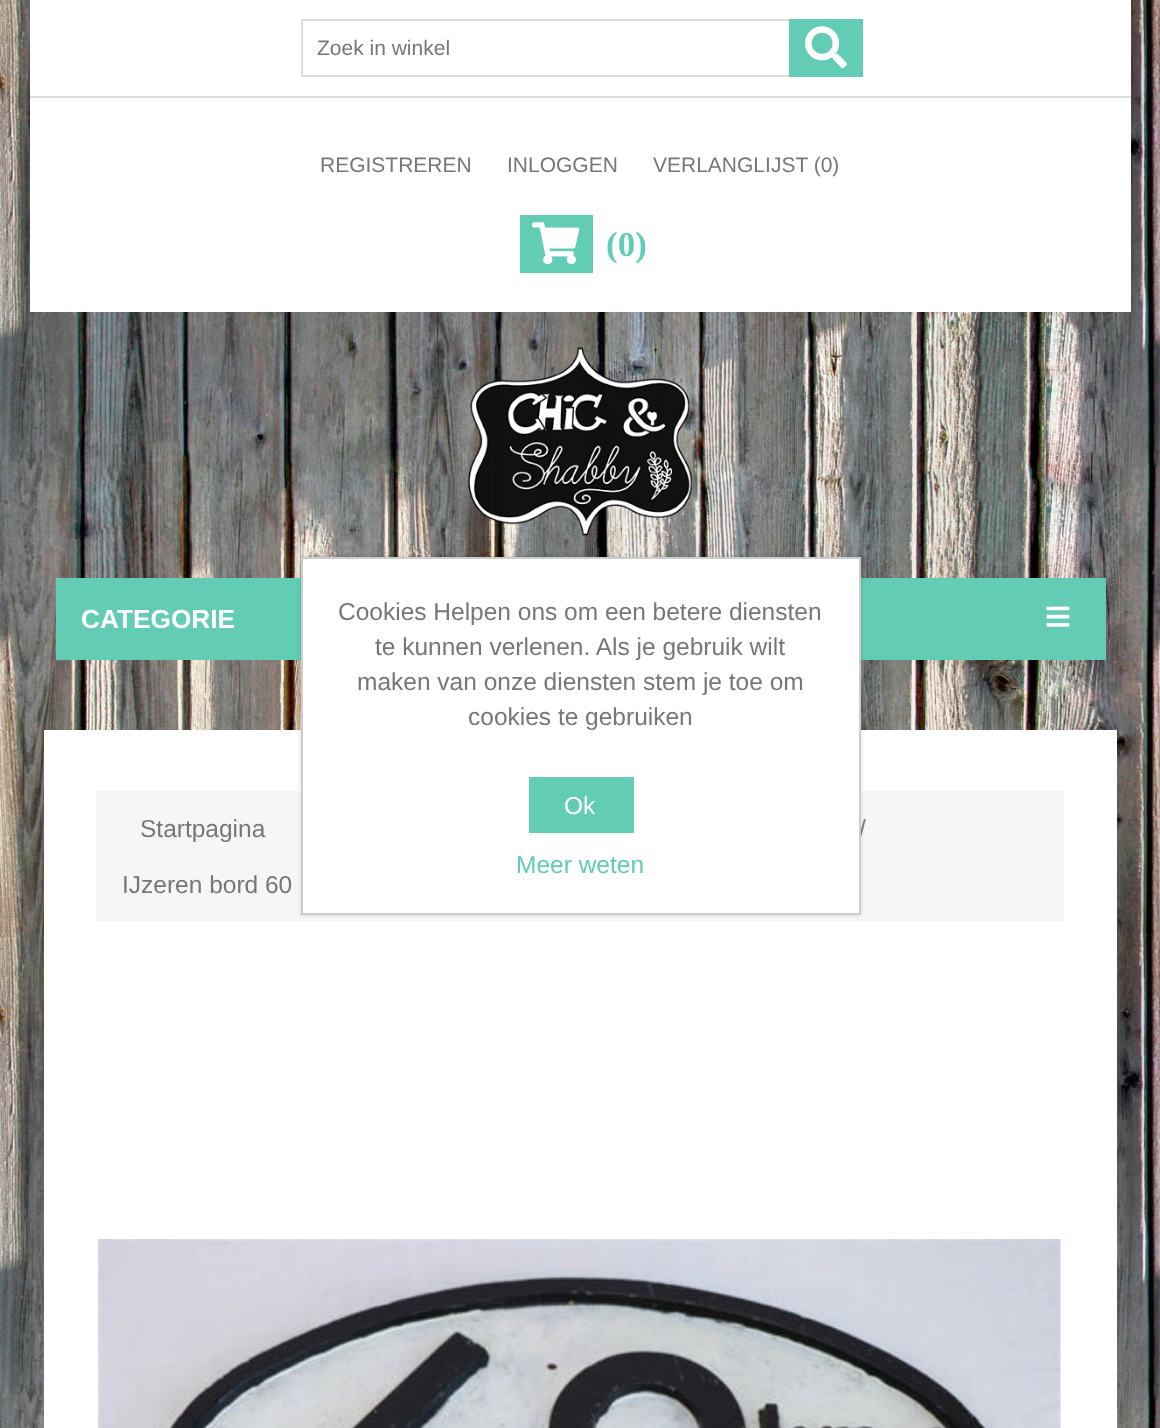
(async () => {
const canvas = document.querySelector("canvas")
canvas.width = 1160
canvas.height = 1428
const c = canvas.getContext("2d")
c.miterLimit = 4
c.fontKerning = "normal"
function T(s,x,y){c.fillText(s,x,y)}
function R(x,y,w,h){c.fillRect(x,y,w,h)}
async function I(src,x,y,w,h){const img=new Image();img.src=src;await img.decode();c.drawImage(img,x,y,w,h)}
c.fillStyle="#fff"
R(0,0,1160,1428)
await I("1.png",0,0,1160,1428)
R(30,0,1101,312)
c.fillStyle="#ddd"
R(30,96,1101,2)
c.strokeStyle="#ddd"
c.lineWidth=2
c.strokeRect(302,20,488,56)
c.font="21px Liberation Sans"
c.fillStyle="#777"
T("Zoek in winkel",317,55)
c.fillStyle="#62ccb5"
R(789,19,74,58)
await I("2.png",805,26,42,43)
c.fillStyle="#777"
T("REGISTREREN",320,172)
T("INLOGGEN",507,172)
T("VERLANGLIJST (0)",653,172)
c.fillStyle="#62ccb5"
R(520,215,73,58)
await I("3.png",532,222,48,43)
c.font="bold 35px Liberation Serif"
T("(0)",606,256)
await I("4.png",468,347,225,189)
R(56,578,1050,82)
c.font="bold 26.25px Liberation Sans"
c.fillStyle="#fff"
T("CATEGORIE",81,628)
await I("5.png",1046,606,24,21)
R(44,730,1073,698)
c.fillStyle="#f6f6f6"
R(96,791,968,130)
c.font="24.5px Liberation Sans"
c.fillStyle="#777"
T("Startpagina",140,837)
T("/",859,837)
T("IJzeren bord 60",122,893)
await I("6.png",98,1239,963,189)
c.fillStyle="#00000026"
c.filter="blur(2px)"
c.beginPath()
c.rect(301,557,560,358)
c.fill()
c.filter="none"
c.fillStyle="#fff"
c.beginPath()
c.rect(302,558,558,356)
c.fill()
c.strokeStyle="#ccc"
c.stroke()
c.fillStyle="#777"
T("Cookies Helpen ons om een betere diensten",338,620)
T("te kunnen verlenen. Als je gebruik wilt",375,655)
T("maken van onze diensten stem je toe om",357,690)
T("cookies te gebruiken",468,725)
c.fillStyle="#62ccb5"
R(529,777,105,56)
c.fillStyle="#fff"
T("Ok",564,814)
c.fillStyle="#62ccb5"
T("Meer weten",516,873)
})()
